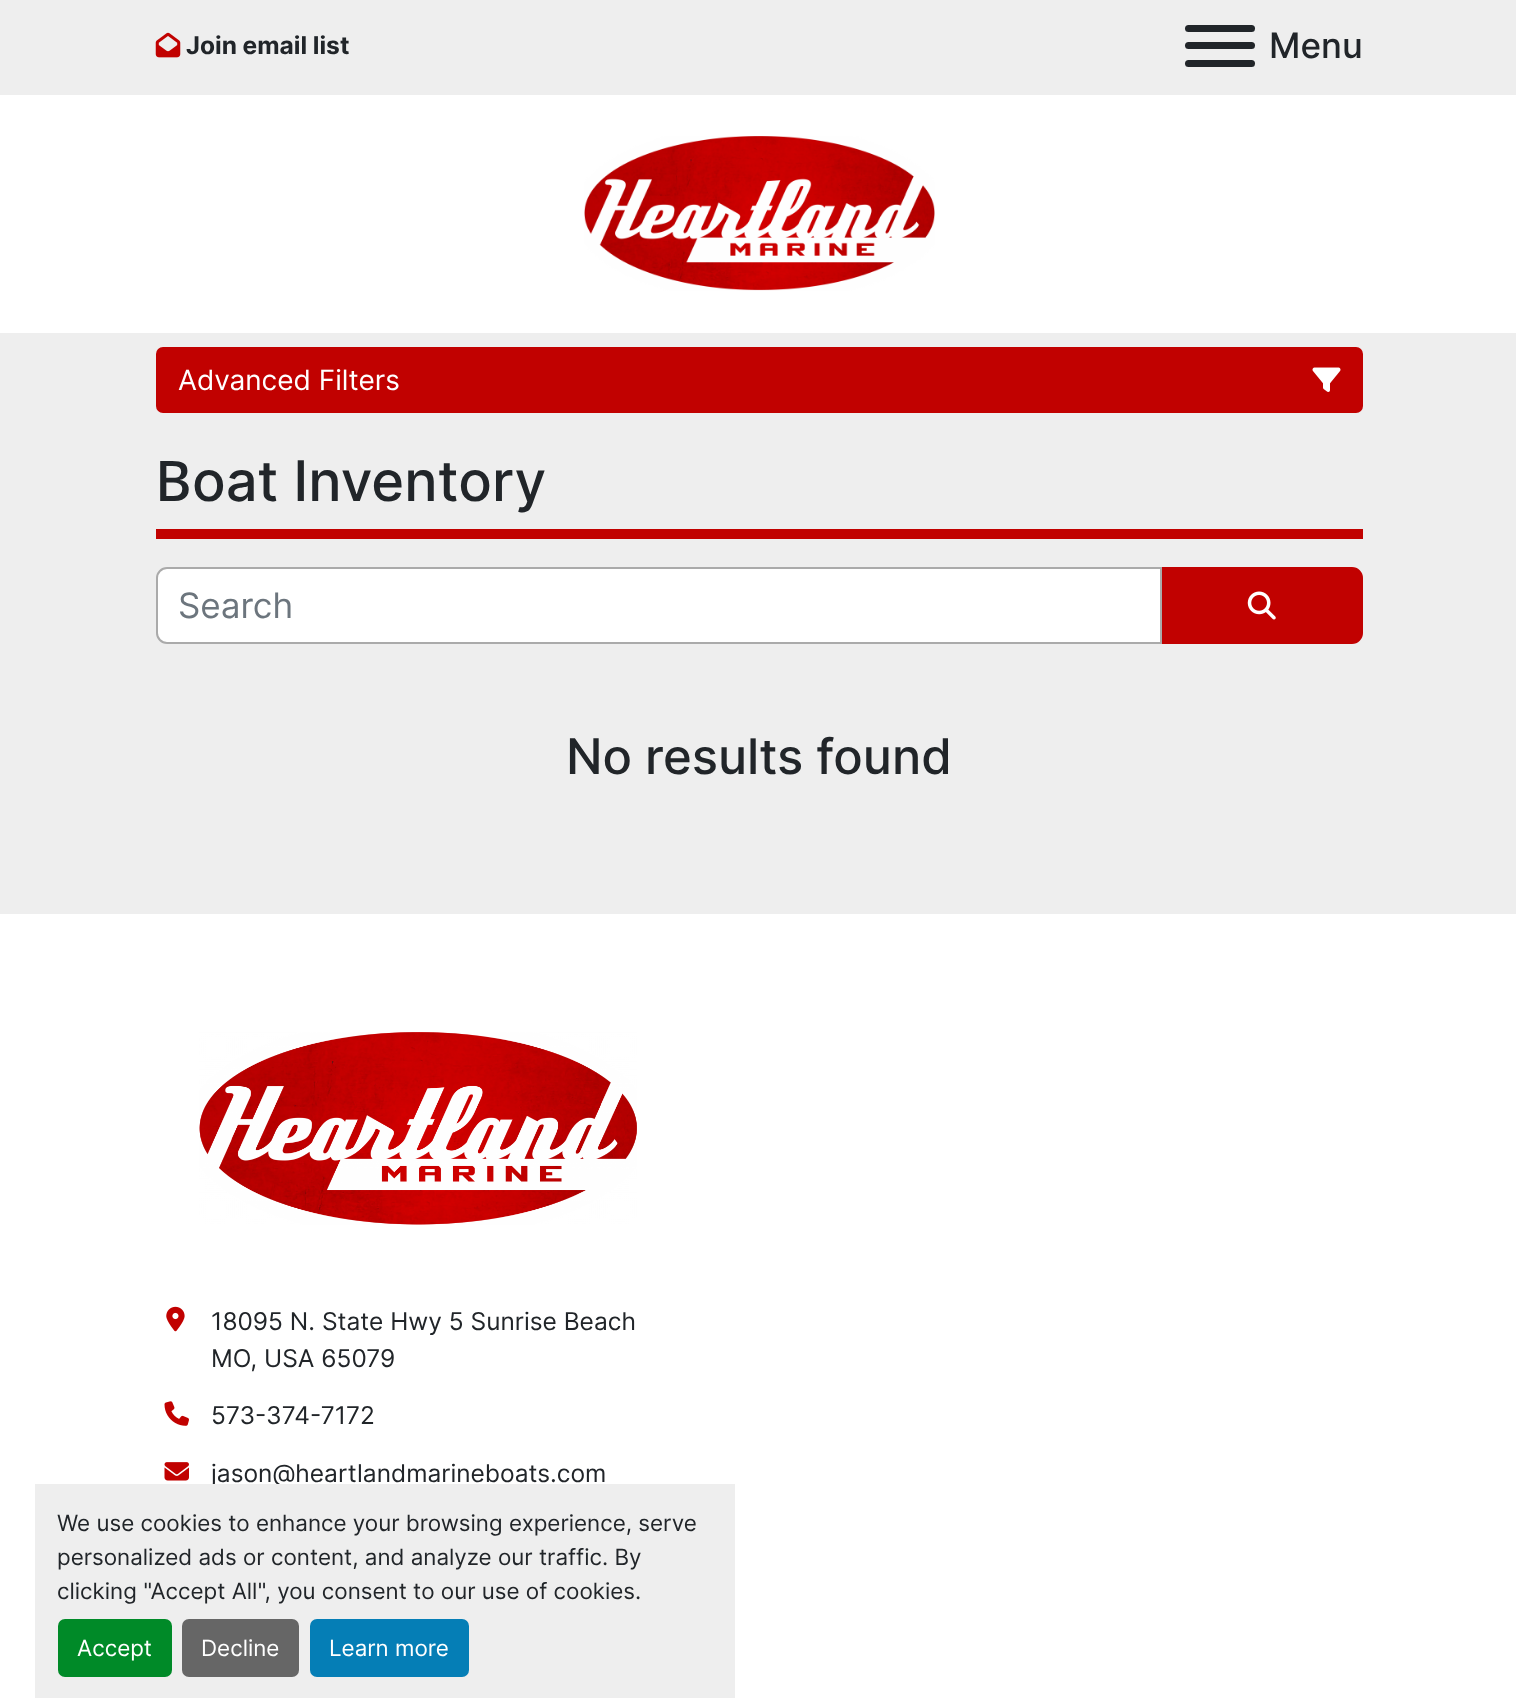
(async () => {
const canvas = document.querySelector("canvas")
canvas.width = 1516
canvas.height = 1698
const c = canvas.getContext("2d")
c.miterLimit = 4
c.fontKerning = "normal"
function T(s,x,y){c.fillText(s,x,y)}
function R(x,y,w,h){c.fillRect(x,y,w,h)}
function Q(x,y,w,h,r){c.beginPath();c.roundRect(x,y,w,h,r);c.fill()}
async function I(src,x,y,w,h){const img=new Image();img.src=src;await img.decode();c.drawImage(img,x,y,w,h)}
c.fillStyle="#eee"
R(0,0,1516,1698)
c.fillStyle="#fff"
R(0,95,1516,238)
await I("1.png",155,32,26,26)
c.font="bold 24.5px Inter"
c.fillStyle="#212529"
T("Join email list",186,54)
Q(1185,42,70,7,3.5)
Q(1185,25,70,7,3.5)
Q(1185,60,70,7,3.5)
c.font="500 35px Inter"
T("Menu",1269,58)
await I("2.png",584,136,351,155)
c.fillStyle="#c10100"
c.beginPath()
c.roundRect(157,348,1205,64,6)
c.fill()
c.strokeStyle="#c10100"
c.lineWidth=2
c.stroke()
c.font="28px Inter"
c.fillStyle="#fff"
T("Advanced Filters",178,390)
await I("3.png",1312,367,29,25)
c.fillStyle="#c10100"
R(156,529,1207,10)
c.font="500 56px Noto Sans"
c.fillStyle="#212529"
T("B",155,501)
c.font="500 56px Inter"
T("oat Inventory",192,501)
c.fillStyle="#fff"
c.beginPath()
c.roundRect(157,568,1004,75,[10,0,0,10])
c.fill()
c.strokeStyle="#aaa"
c.stroke()
c.font="35px Inter"
c.fillStyle="#6c757d"
T("Search",178,618)
c.fillStyle="#c10100"
c.beginPath()
c.roundRect(1163,568,199,75,[0,10,10,0])
c.fill()
c.strokeStyle="#c10100"
c.stroke()
await I("4.png",1247,591,29,29)
c.font="500 49px Inter"
c.fillStyle="#212529"
T("No results found",566,774)
c.fillStyle="#fff"
R(0,914,1516,784)
await I("5.png",199,1032,438,193)
await I("6.png",166,1306,19,26)
c.font="24.5px Inter"
c.fillStyle="#212529"
T("18095 N. State Hwy 5 Sunrise Beach",211,1330)
T("MO, USA 65079",211,1367)
await I("7.png",164,1401,25,25)
T("573-374-7172",211,1424)
await I("8.png",164,1462,25,19)
T("jason@heartlandmarineboats.com",211,1482)
c.fillStyle="#eee"
R(35,1484,700,214)
c.font="22.4px Inter"
c.fillStyle="#212529"
T("We use cookies to enhance your browsing experience, serve",57,1531)
T("personalized ads or content, and analyze our traffic. By",57,1565)
T("clicking \"Accept All\", you consent to our use of cookies.",57,1599)
c.fillStyle="#008a28"
Q(58,1619,114,58,7)
c.fillStyle="#fff"
T("Accept",77,1656)
c.fillStyle="#666"
Q(182,1619,117,58,7)
c.fillStyle="#fff"
T("Decline",201,1656)
c.fillStyle="#057eb6"
Q(310,1619,159,58,7)
c.fillStyle="#fff"
T("Learn more",329,1656)
})()
